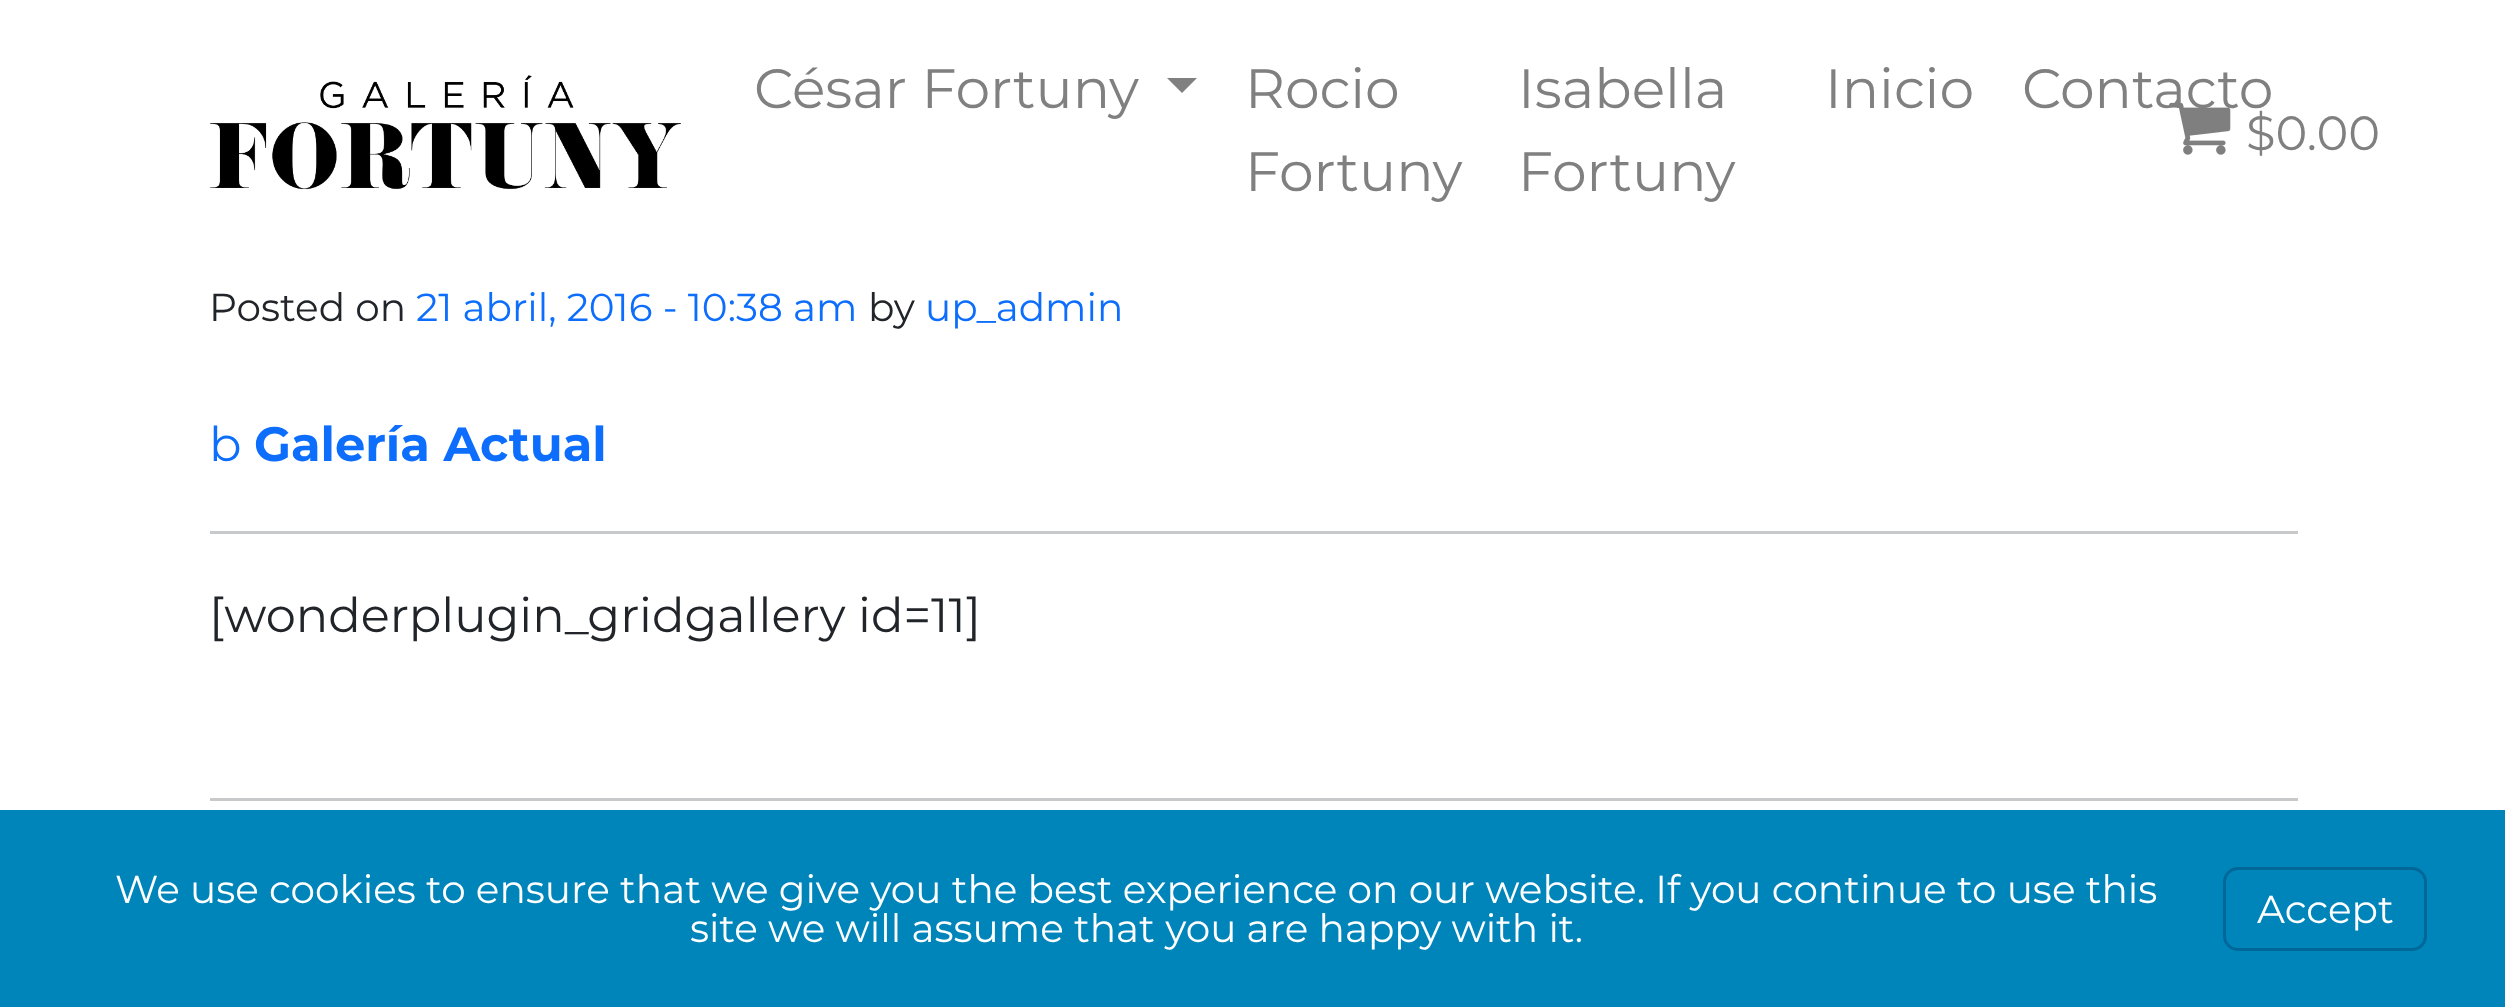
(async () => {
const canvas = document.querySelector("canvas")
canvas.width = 2505
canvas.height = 1007
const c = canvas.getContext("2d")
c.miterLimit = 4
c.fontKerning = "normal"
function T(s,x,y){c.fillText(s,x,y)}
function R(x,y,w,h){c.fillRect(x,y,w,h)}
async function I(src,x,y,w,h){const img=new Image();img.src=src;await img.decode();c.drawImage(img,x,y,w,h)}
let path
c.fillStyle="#fff"
R(0,0,2505,1007)
await I("1.png",210,75,471,115)
c.font="55.25px Montserrat"
c.fillStyle="#808080"
T("César Fortuny",754,108)
path = new Path2D("M1167 78h30l-15 15z")
c.fill(path)
T("Rocio",1245,108)
T("Fortuny",1245,191)
T("Isabella",1518,108)
T("Fortuny",1518,191)
T("Inicio",1825,108)
T("Contacto",2022,108)
await I("2.png",2169,102,62,53)
c.font="48px Montserrat"
T("$0.00",2246,150)
c.font="39px Montserrat"
c.fillStyle="#212529"
T("Posted on",209,321)
c.fillStyle="#0d6efd"
T("21 abril, 2016 - 10:38 am",416,321)
c.fillStyle="#212529"
T("by",868,321)
c.fillStyle="#0d6efd"
T("up_admin",925,321)
c.font="48px Montserrat"
T("b",209,461)
c.font="bold 48px Montserrat"
T("Galería Actual",254,461)
c.fillStyle="#c8c9ca"
R(210,531,2088,3)
c.font="48px Montserrat"
c.fillStyle="#212529"
T("[wonderplugin_gridgallery id=11]",209,632)
c.fillStyle="#c8c9ca"
R(210,798,2088,3)
c.fillStyle="#0085ba"
R(0,810,2505,197)
c.font="39px Montserrat"
c.fillStyle="#fff"
T("We use cookies to ensure that we give you the best experience on our website. If you continue to use this",115,903)
T("site we will assume that you are happy with it.",690,942)
c.beginPath()
c.roundRect(2224.5,868.5,201,81,13.5)
c.strokeStyle="#006799"
c.lineWidth=3
c.stroke()
T("Accept",2257,923)
})()
